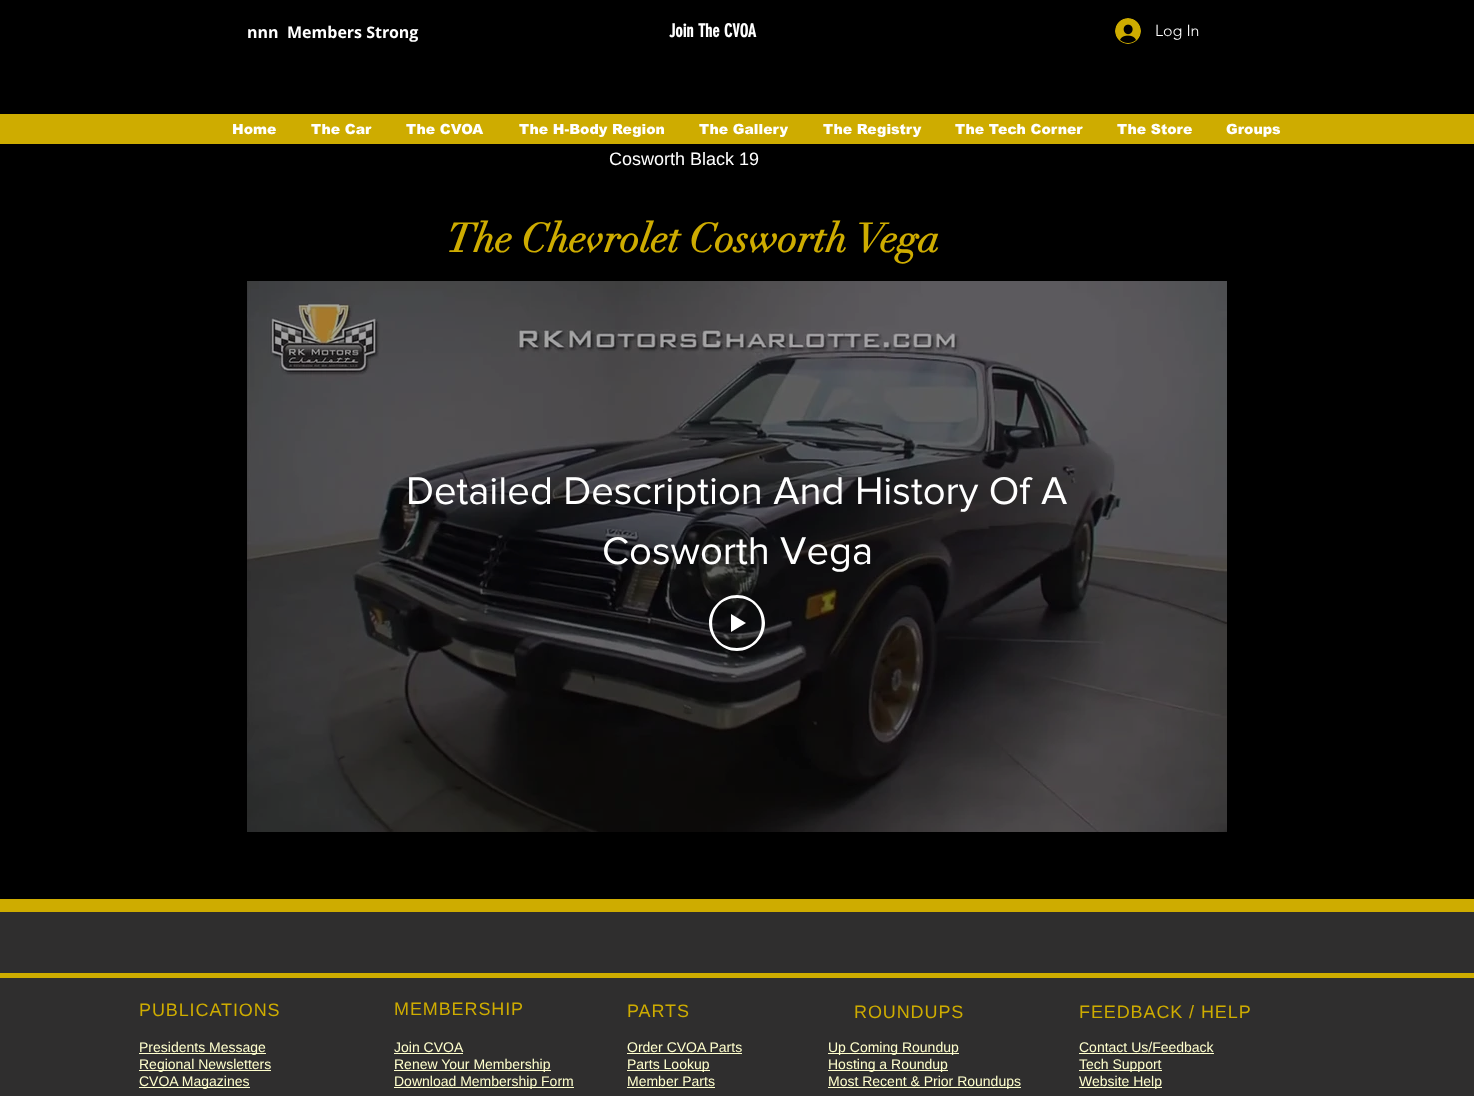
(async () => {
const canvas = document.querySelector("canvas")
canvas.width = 1474
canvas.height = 1096
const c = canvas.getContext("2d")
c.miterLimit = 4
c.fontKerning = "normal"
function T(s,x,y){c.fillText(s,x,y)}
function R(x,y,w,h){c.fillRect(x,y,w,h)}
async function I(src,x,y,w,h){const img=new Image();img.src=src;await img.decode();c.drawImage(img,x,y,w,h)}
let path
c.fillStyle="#000"
R(0,0,1474,1096)
c.font="bold 16px Open Sans"
c.fillStyle="#fff"
T("nnn",247,38)
T("Members Strong",287,38)
c.font="bold 18px 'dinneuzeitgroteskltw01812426'"
T("Join The CVOA",669,37)
await I("1.png",1115,18,26,26)
c.font="300 16px 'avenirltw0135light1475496'"
T("Log In",1155,36)
c.fillStyle="#ceac00"
R(0,114,1474,30)
c.font="900 14px arial"
c.fillStyle="#fff"
T("Home",232,134)
T("The Car",311,134)
T("The CVOA",406,134)
T("The H-Body Region",519,134)
T("The Gallery",699,134)
T("The Registry",823,134)
T("The Tech Corner",955,134)
T("The Store",1117,134)
T("Groups",1226,134)
c.font="18px Liberation Sans"
T("Cosworth Black 19",609,165)
c.font="bold 40px didot"
c.fillStyle="#ceac00"
T("The Chevrolet Cosworth Vega",447,252)
await I("2.png",247,281,980,551)
c.font="40px 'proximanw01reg'"
c.fillStyle="#fff"
T("Detailed Description And History Of A",406,504)
T("Cosworth Vega",602,564)
path = new Path2D("M737 648c33 0 33-50 0-50c-33 0-33 50 0 50zm0 3c-15 0-28-13-28-28c0-15 13-28 28-28c15 0 28 13 28 28c0 15-13 28-28 28z")
c.fill(path,"evenodd")
path = new Path2D("M746 623l-15 9v-18z")
c.fill(path,"evenodd")
c.fillStyle="#2f2e2e"
R(0,912,1474,184)
c.fillStyle="#ceac00"
R(0,899,1474,13)
R(0,973,1474,5)
c.letterSpacing="0.9px"
c.font="18px Liberation Sans"
T("PUBLICATIONS",139,1016)
T("MEMBERSHIP",394,1015)
T("PARTS",627,1017)
T("ROUNDUPS",854,1018)
T("FEEDBACK / HELP",1079,1018)
c.fillStyle="#ffffcd"
R(139,1053,127,1)
c.letterSpacing="0px"
c.font="14px Liberation Sans"
T("Presidents Message",139,1052)
R(139,1070,132,1)
T("Regional Newsletters",139,1069)
R(139,1087,111,1)
T("CVOA Magazines",139,1086)
T("Join CVOA",394,1052)
R(394,1053,69,1)
R(394,1070,157,1)
T("Renew Your Membership",394,1069)
R(394,1087,180,1)
T("Download Membership Form",394,1086)
T("Order CVOA Parts",627,1052)
R(627,1053,115,1)
R(627,1070,83,1)
T("Parts Lookup",627,1069)
T("Member Parts",627,1086)
R(627,1087,88,1)
R(828,1053,131,1)
T("Up Coming Roundup",828,1052)
R(828,1070,120,1)
T("Hosting a Roundup",828,1069)
R(828,1087,193,1)
T("Most Recent & Prior Roundups",828,1086)
T("Contact Us/Feedback",1079,1052)
R(1079,1053,135,1)
R(1079,1070,83,1)
T("Tech Support",1079,1069)
R(1079,1087,83,1)
T("Website Help",1079,1086)
})()
